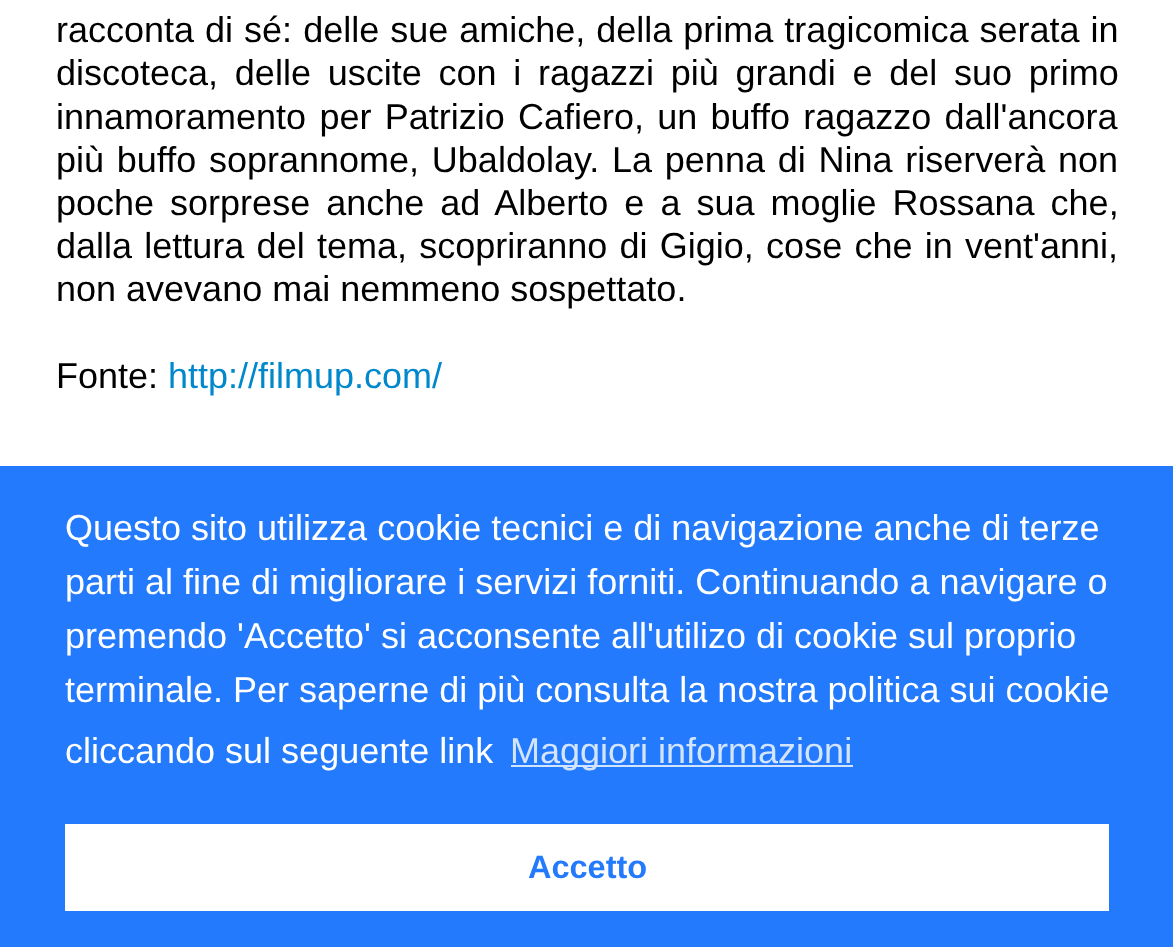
(async () => {
const canvas = document.querySelector("canvas")
canvas.width = 1173
canvas.height = 947
const c = canvas.getContext("2d")
c.miterLimit = 4
c.fontKerning = "normal"
function T(s,x,y){c.fillText(s,x,y)}
function R(x,y,w,h){c.fillRect(x,y,w,h)}
c.fillStyle="#fff"
R(0,0,1173,947)
c.wordSpacing="1px"
c.font="36px Arimo"
c.fillStyle="#000"
T("racconta di sé: delle sue amiche, della prima tragicomica serata in",56,42)
c.wordSpacing="6.75px"
T("discoteca, delle uscite con i ragazzi più grandi e del suo primo",56,85)
c.wordSpacing="3.25px"
T("innamoramento per Patrizio Cafiero, un buffo ragazzo dall'ancora",56,129)
c.wordSpacing="2.75px"
T("più buffo soprannome, Ubaldolay. La penna di Nina riserverà non",56,172)
c.wordSpacing="6px"
T("poche sorprese anche ad Alberto e a sua moglie Rossana che,",56,215)
c.wordSpacing="2.25px"
T("dalla lettura del tema, scopriranno di Gigio, cose che in vent'anni,",56,258)
c.wordSpacing="0px"
T("non avevano mai nemmeno sospettato.",56,301)
T("Fonte:",56,388)
c.fillStyle="#08c"
T("http://filmup.com/",168,388)
c.fillStyle="#237afc"
R(0,466,1173,481)
c.font="36px Liberation Sans"
c.fillStyle="#fff"
T("Questo sito utilizza cookie tecnici e di navigazione anche di terze",65,540)
T("parti al fine di migliorare i servizi forniti. Continuando a navigare o",65,594)
T("premendo 'Accetto' si acconsente all'utilizo di cookie sul proprio",65,648)
T("terminale. Per saperne di più consulta la nostra politica sui cookie",65,702)
T("cliccando sul seguente link",65,763)
c.fillStyle="#d3e4fe"
R(511,765,342,2)
T("Maggiori informazioni",510,763)
c.fillStyle="#fff"
R(65,824,1044,87)
c.font="bold 32.5px Liberation Sans"
c.fillStyle="#237afc"
T("Accetto",528,878)
})()
